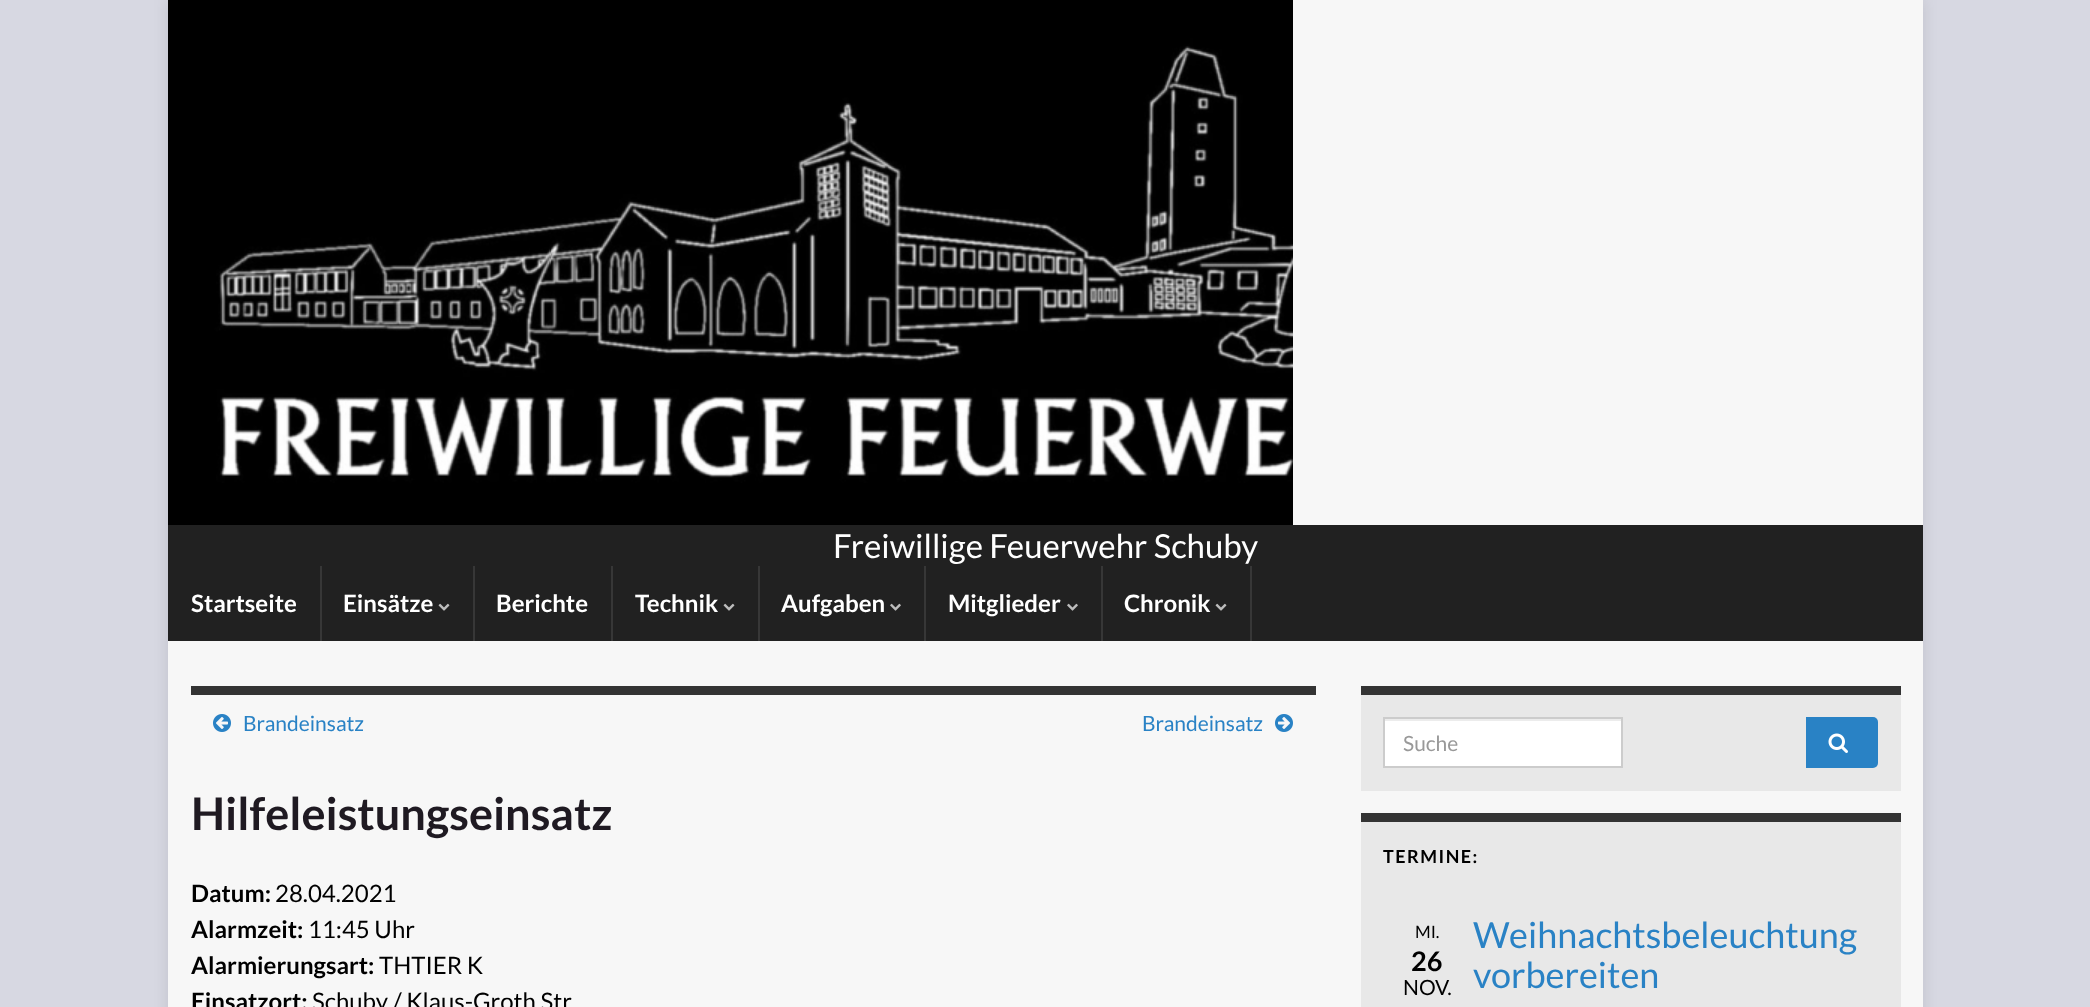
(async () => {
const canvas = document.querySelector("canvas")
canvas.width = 2090
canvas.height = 1007
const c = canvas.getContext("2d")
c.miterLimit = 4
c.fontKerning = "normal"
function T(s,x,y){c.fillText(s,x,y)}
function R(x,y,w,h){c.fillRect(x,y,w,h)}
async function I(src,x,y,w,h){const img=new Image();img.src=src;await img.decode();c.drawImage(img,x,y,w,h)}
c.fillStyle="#d7d8e2"
R(0,0,2090,1007)
c.fillStyle="#0000001a"
c.filter="blur(7.5px)"
c.beginPath()
c.rect(168,0,1755,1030)
c.fill()
c.filter="none"
c.fillStyle="#f7f7f7"
R(1293,0,630,525)
await I("1.png",168,0,1125,525)
c.fillStyle="#212121"
R(168,525,1755,116)
c.font="33px Lato"
c.fillStyle="#fff"
T("Freiwillige Feuerwehr Schuby",833,558)
c.fillStyle="#373737"
R(320,566,2,75)
c.font="bold 24px Lato"
c.fillStyle="#fff"
T("Startseite",191,612)
c.fillStyle="#373737"
R(473,566,2,75)
c.fillStyle="#fff"
T("Einsätze",343,612)
await I("2.png",438,603,12,8)
c.fillStyle="#373737"
R(611,566,2,75)
c.fillStyle="#fff"
T("Berichte",496,612)
c.fillStyle="#373737"
R(758,566,2,75)
c.fillStyle="#fff"
T("Technik",635,612)
await I("2.png",723,603,12,8)
c.fillStyle="#373737"
R(924,566,2,75)
c.fillStyle="#fff"
T("Aufgaben",781,612)
await I("3.png",890,603,11,8)
c.fillStyle="#373737"
R(1101,566,2,75)
c.fillStyle="#fff"
T("Mitglieder",948,612)
await I("3.png",1067,603,11,8)
c.fillStyle="#373737"
R(1250,566,2,75)
c.fillStyle="#fff"
T("Chronik",1124,612)
await I("2.png",1215,603,12,8)
c.fillStyle="#f7f7f7"
R(168,641,1755,366)
c.fillStyle="#333"
R(191,686,1125,9)
await I("4.png",213,714,18,18)
c.font="21px Lato"
c.fillStyle="#2982c5"
T("Brandeinsatz",243,731)
T("Brandeinsatz",1142,731)
await I("5.png",1275,714,18,18)
c.font="bold 45px Lato"
c.fillStyle="#1f1a22"
T("Hilfeleistungseinsatz",191,830)
c.font="bold 24px Lato"
c.fillStyle="#000"
T("Datum:",191,902)
c.font="24px Lato"
T("28.04.2021",275,902)
c.font="bold 24px Lato"
T("Alarmzeit:",191,938)
c.font="24px Lato"
T("11:45 Uhr",308,938)
c.font="bold 24px Lato"
T("Alarmierungsart:",191,974)
c.font="24px Lato"
T("THTIER K",379,974)
c.font="bold 24px Lato"
T("Einsatzort:",191,1010)
c.font="24px Lato"
T("Schuby / Klaus-Groth Str.",312,1010)
c.fillStyle="#e8e8e8"
R(1361,695,540,96)
c.fillStyle="#333"
R(1361,686,540,9)
c.fillStyle="#fff"
R(1385,721,236,45)
c.fillStyle="#ececec"
R(1385,719,237,2)
c.strokeStyle="#ccc"
c.lineWidth=2
c.strokeRect(1384,718,238,49)
c.font="21px Lato"
c.fillStyle="#999"
T("Suche",1403,751)
c.fillStyle="#2982c5"
c.beginPath()
c.roundRect(1806,717,72,51,[0,5,5,0])
c.fill()
await I("6.png",1828,733,20,20)
c.fillStyle="#e8e8e8"
R(1361,822,540,185)
c.fillStyle="#333"
R(1361,813,540,9)
c.letterSpacing="1.5px"
c.font="bold 18px Lato"
c.fillStyle="#000"
T("TERMINE:",1383,863)
c.letterSpacing="0px"
c.font="17px Lato"
T("MI.",1415,938)
c.font="bold 27px Lato"
T("26",1411,971)
c.font="21px Lato"
T("NOV.",1403,995)
c.font="36px Lato"
c.fillStyle="#2982c5"
T("Weihnachtsbeleuchtung",1473,948)
T("vorbereiten",1473,988)
})()
